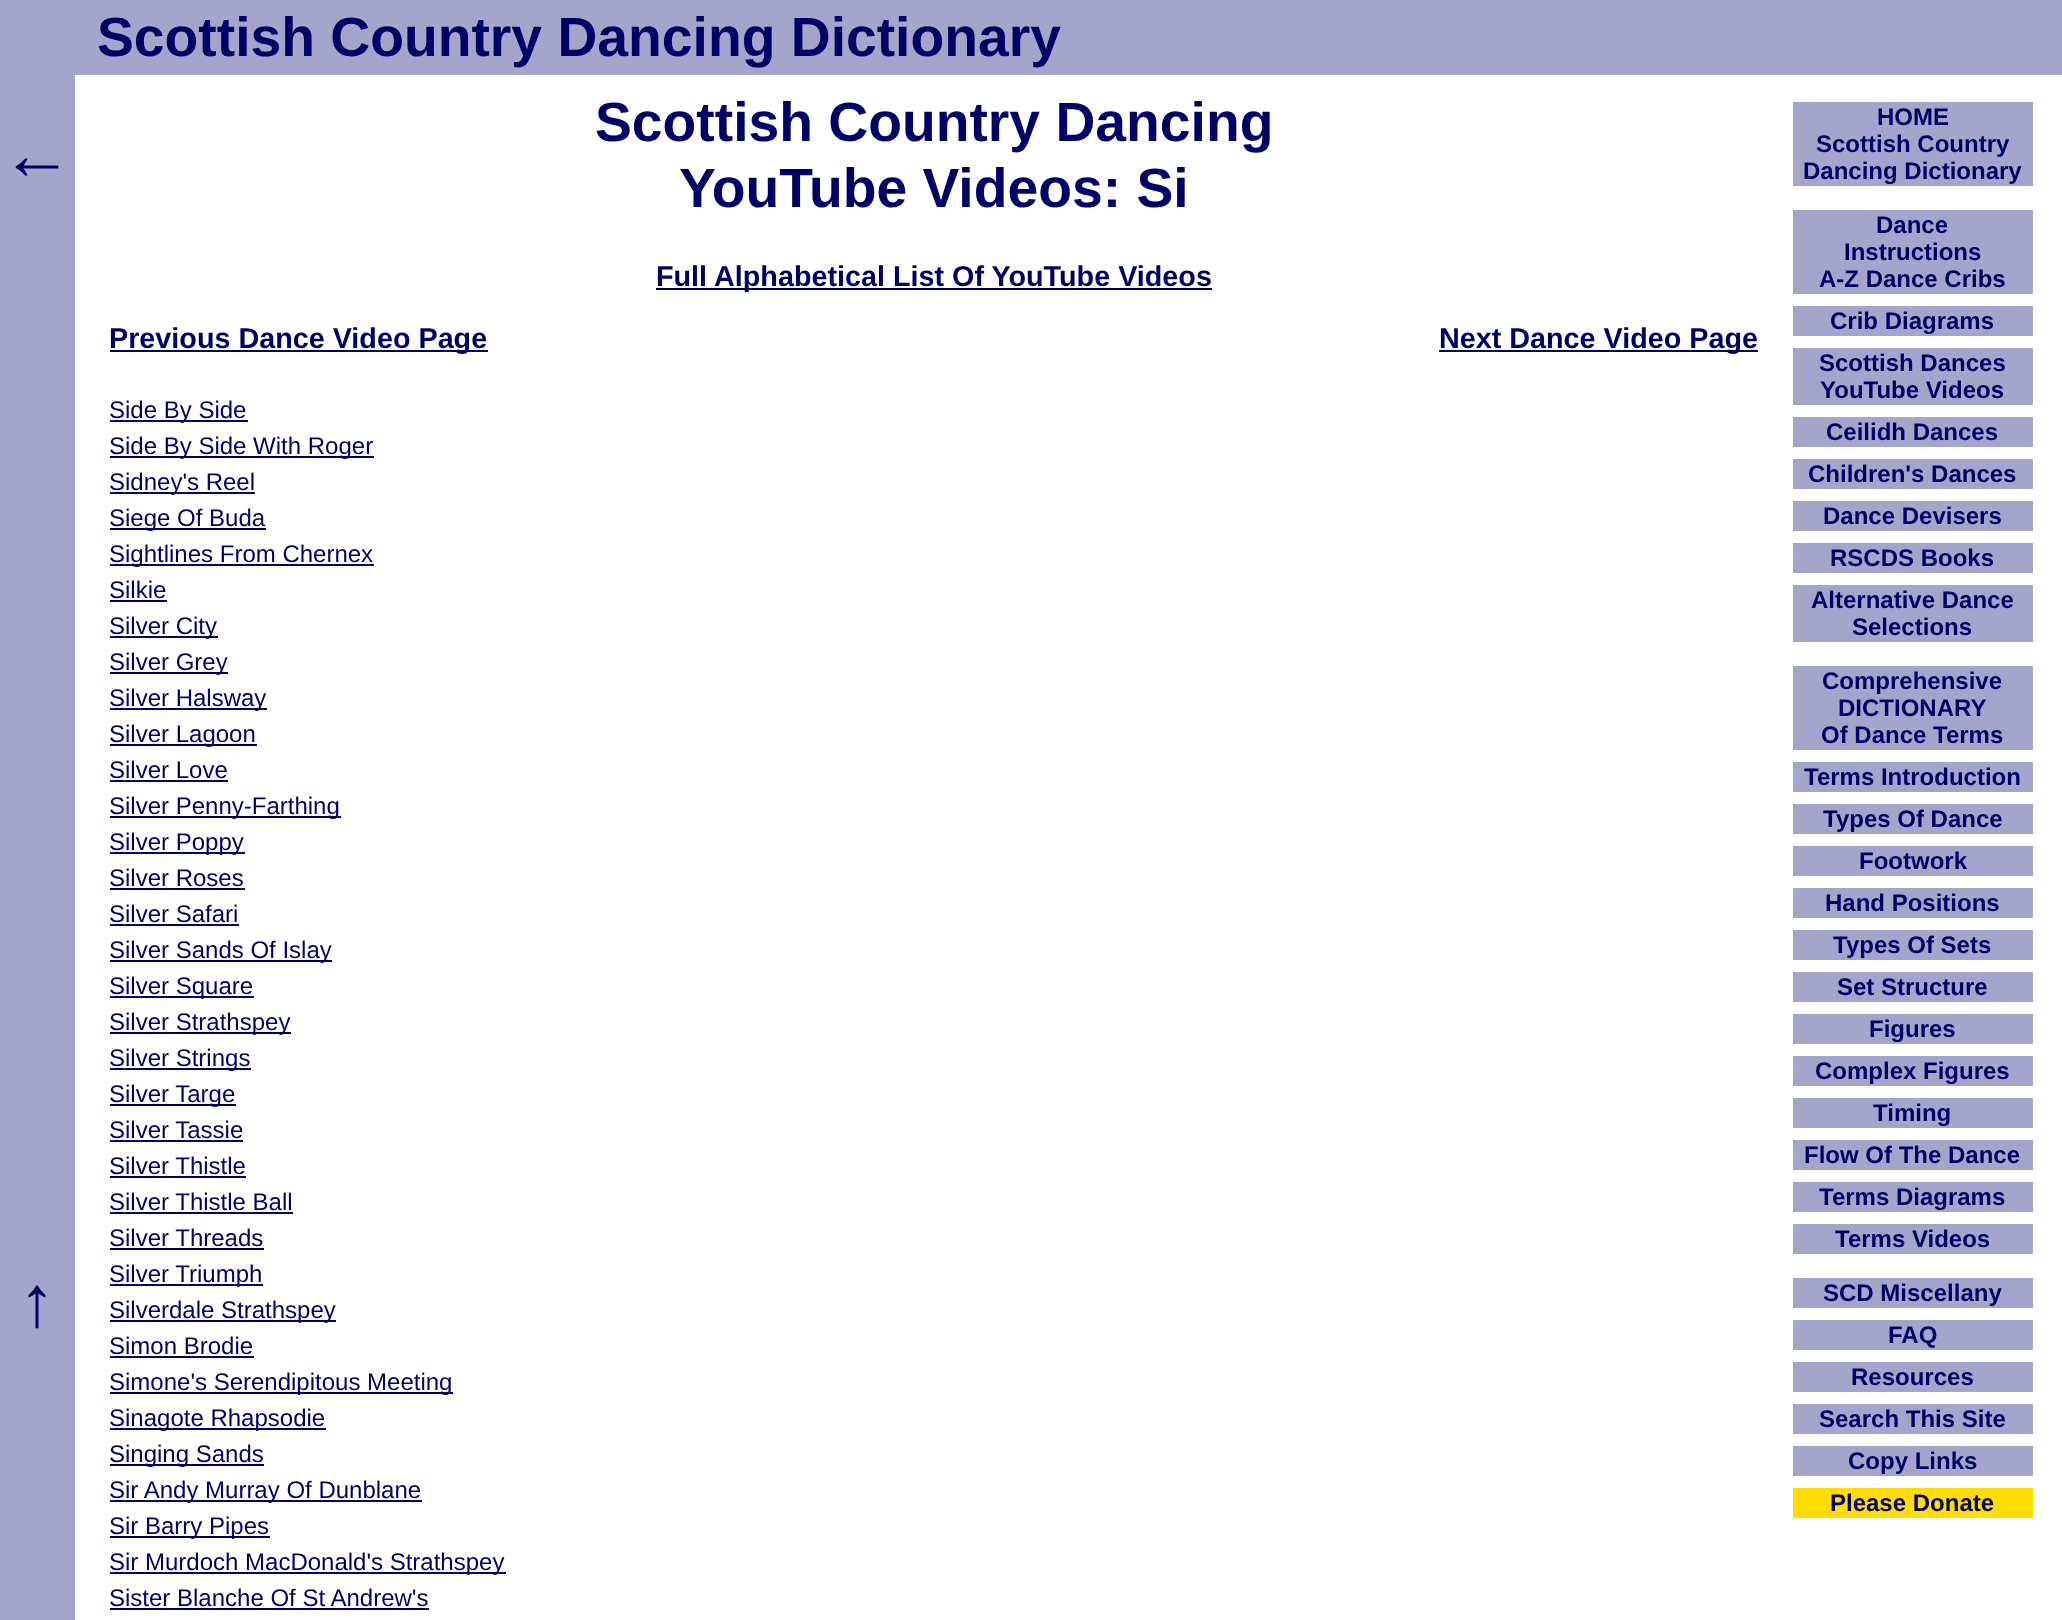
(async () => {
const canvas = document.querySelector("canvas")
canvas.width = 2062
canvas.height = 1620
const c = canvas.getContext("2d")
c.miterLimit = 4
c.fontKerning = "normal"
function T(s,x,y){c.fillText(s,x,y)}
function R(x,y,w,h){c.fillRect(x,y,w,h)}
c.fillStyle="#fff"
R(0,0,2062,1620)
c.fillStyle="#a5a5cb"
R(0,0,75,1620)
R(75,0,1987,75)
c.font="bold 55.25px Liberation Sans"
c.fillStyle="#006"
T("Scottish Country Dancing Dictionary",97,56)
c.font="72px Liberation Sans"
T("←",1,179)
c.font="bold 55.25px Liberation Sans"
T("Scottish Country Dancing",595,141)
T("YouTube Videos: Si",679,207)
R(656,288,556,2)
c.font="bold 28.75px Liberation Sans"
T("Full Alphabetical List Of YouTube Videos",656,286)
R(110,350,378,2)
T("Previous Dance Video Page",109,348)
R(1439,350,319,2)
T("Next Dance Video Page",1439,348)
R(110,420,138,2)
c.font="24px Liberation Sans"
T("Side By Side",109,418)
R(110,456,264,2)
T("Side By Side With Roger",109,454)
R(110,492,145,2)
T("Sidney's Reel",109,490)
R(110,528,156,2)
T("Siege Of Buda",109,526)
R(110,564,264,2)
T("Sightlines From Chernex",109,562)
T("Silkie",109,598)
R(110,600,57,2)
R(110,636,108,2)
T("Silver City",109,634)
R(110,672,118,2)
T("Silver Grey",109,670)
R(110,708,157,2)
T("Silver Halsway",109,706)
R(110,744,147,2)
T("Silver Lagoon",109,742)
T("Silver Love",109,778)
R(110,780,118,2)
R(110,816,231,2)
T("Silver Penny-Farthing",109,814)
R(110,852,135,2)
T("Silver Poppy",109,850)
T("Silver Roses",109,886)
R(110,888,135,2)
T("Silver Safari",109,922)
R(110,924,129,2)
R(110,960,222,2)
T("Silver Sands Of Islay",109,958)
R(110,996,144,2)
T("Silver Square",109,994)
R(110,1032,181,2)
T("Silver Strathspey",109,1030)
R(110,1068,141,2)
T("Silver Strings",109,1066)
R(110,1104,126,2)
T("Silver Targe",109,1102)
T("Silver Tassie",109,1138)
R(110,1140,133,2)
T("Silver Thistle",109,1174)
R(110,1176,136,2)
T("Silver Thistle Ball",109,1210)
R(110,1212,183,2)
T("Silver Threads",109,1246)
R(110,1248,154,2)
R(110,1284,153,2)
T("Silver Triumph",109,1282)
R(110,1320,226,2)
T("Silverdale Strathspey",109,1318)
T("Simon Brodie",109,1354)
R(110,1356,144,2)
R(110,1392,343,2)
T("Simone's Serendipitous Meeting",109,1390)
R(110,1428,216,2)
T("Sinagote Rhapsodie",109,1426)
R(110,1464,154,2)
T("Singing Sands",109,1462)
R(110,1500,312,2)
T("Sir Andy Murray Of Dunblane",109,1498)
R(110,1536,160,2)
T("Sir Barry Pipes",109,1534)
R(110,1572,396,2)
T("Sir Murdoch MacDonald's Strathspey",109,1570)
T("Sister Blanche Of St Andrew's",109,1606)
R(110,1608,319,2)
c.fillStyle="#a5a5cb"
R(1793,102,240,84)
c.font="bold 24px Liberation Sans"
c.fillStyle="#006"
T("HOME",1877,125)
T("Scottish Country",1816,152)
T("Dancing Dictionary",1803,179)
c.fillStyle="#a5a5cb"
R(1793,210,240,84)
c.fillStyle="#006"
T("Dance",1876,233)
T("Instructions",1844,260)
T("A-Z Dance Cribs",1819,287)
c.fillStyle="#a5a5cb"
R(1793,306,240,30)
c.fillStyle="#006"
T("Crib Diagrams",1830,329)
c.fillStyle="#a5a5cb"
R(1793,348,240,57)
c.fillStyle="#006"
T("Scottish Dances",1819,371)
T("YouTube Videos",1820,398)
c.fillStyle="#a5a5cb"
R(1793,417,240,30)
c.fillStyle="#006"
T("Ceilidh Dances",1826,440)
c.fillStyle="#a5a5cb"
R(1793,459,240,30)
c.fillStyle="#006"
T("Children's Dances",1808,482)
c.fillStyle="#a5a5cb"
R(1793,501,240,30)
c.fillStyle="#006"
T("Dance Devisers",1823,524)
c.fillStyle="#a5a5cb"
R(1793,543,240,30)
c.fillStyle="#006"
T("RSCDS Books",1830,566)
c.fillStyle="#a5a5cb"
R(1793,585,240,57)
c.fillStyle="#006"
T("Alternative Dance",1811,608)
T("Selections",1852,635)
c.fillStyle="#a5a5cb"
R(1793,666,240,84)
c.fillStyle="#006"
T("Comprehensive",1822,689)
T("DICTIONARY",1838,716)
T("Of Dance Terms",1821,743)
c.fillStyle="#a5a5cb"
R(1793,762,240,30)
c.fillStyle="#006"
T("Terms Introduction",1804,785)
c.fillStyle="#a5a5cb"
R(1793,804,240,30)
c.fillStyle="#006"
T("Types Of Dance",1823,827)
c.fillStyle="#a5a5cb"
R(1793,846,240,30)
c.fillStyle="#006"
T("Footwork",1859,869)
c.fillStyle="#a5a5cb"
R(1793,888,240,30)
c.fillStyle="#006"
T("Hand Positions",1825,911)
c.fillStyle="#a5a5cb"
R(1793,930,240,30)
c.fillStyle="#006"
T("Types Of Sets",1833,953)
c.fillStyle="#a5a5cb"
R(1793,972,240,30)
c.fillStyle="#006"
T("Set Structure",1837,995)
c.fillStyle="#a5a5cb"
R(1793,1014,240,30)
c.fillStyle="#006"
T("Figures",1869,1037)
c.fillStyle="#a5a5cb"
R(1793,1056,240,30)
c.fillStyle="#006"
T("Complex Figures",1815,1079)
c.fillStyle="#a5a5cb"
R(1793,1098,240,30)
c.fillStyle="#006"
T("Timing",1873,1121)
c.fillStyle="#a5a5cb"
R(1793,1140,240,30)
c.fillStyle="#006"
T("Flow Of The Dance",1804,1163)
c.fillStyle="#a5a5cb"
R(1793,1182,240,30)
c.fillStyle="#006"
T("Terms Diagrams",1819,1205)
c.fillStyle="#a5a5cb"
R(1793,1224,240,30)
c.fillStyle="#006"
T("Terms Videos",1835,1247)
c.fillStyle="#a5a5cb"
R(1793,1278,240,30)
c.fillStyle="#006"
T("SCD Miscellany",1823,1301)
c.fillStyle="#a5a5cb"
R(1793,1320,240,30)
c.fillStyle="#006"
T("FAQ",1888,1343)
c.fillStyle="#a5a5cb"
R(1793,1362,240,30)
c.fillStyle="#006"
T("Resources",1851,1385)
c.fillStyle="#a5a5cb"
R(1793,1404,240,30)
c.fillStyle="#006"
T("Search This Site",1819,1427)
c.fillStyle="#a5a5cb"
R(1793,1446,240,30)
c.fillStyle="#006"
T("Copy Links",1848,1469)
c.fillStyle="#fd0"
R(1793,1488,240,30)
c.fillStyle="#006"
T("Please Donate",1830,1511)
c.font="72px Liberation Sans"
T("↑",19,1326)
})()
